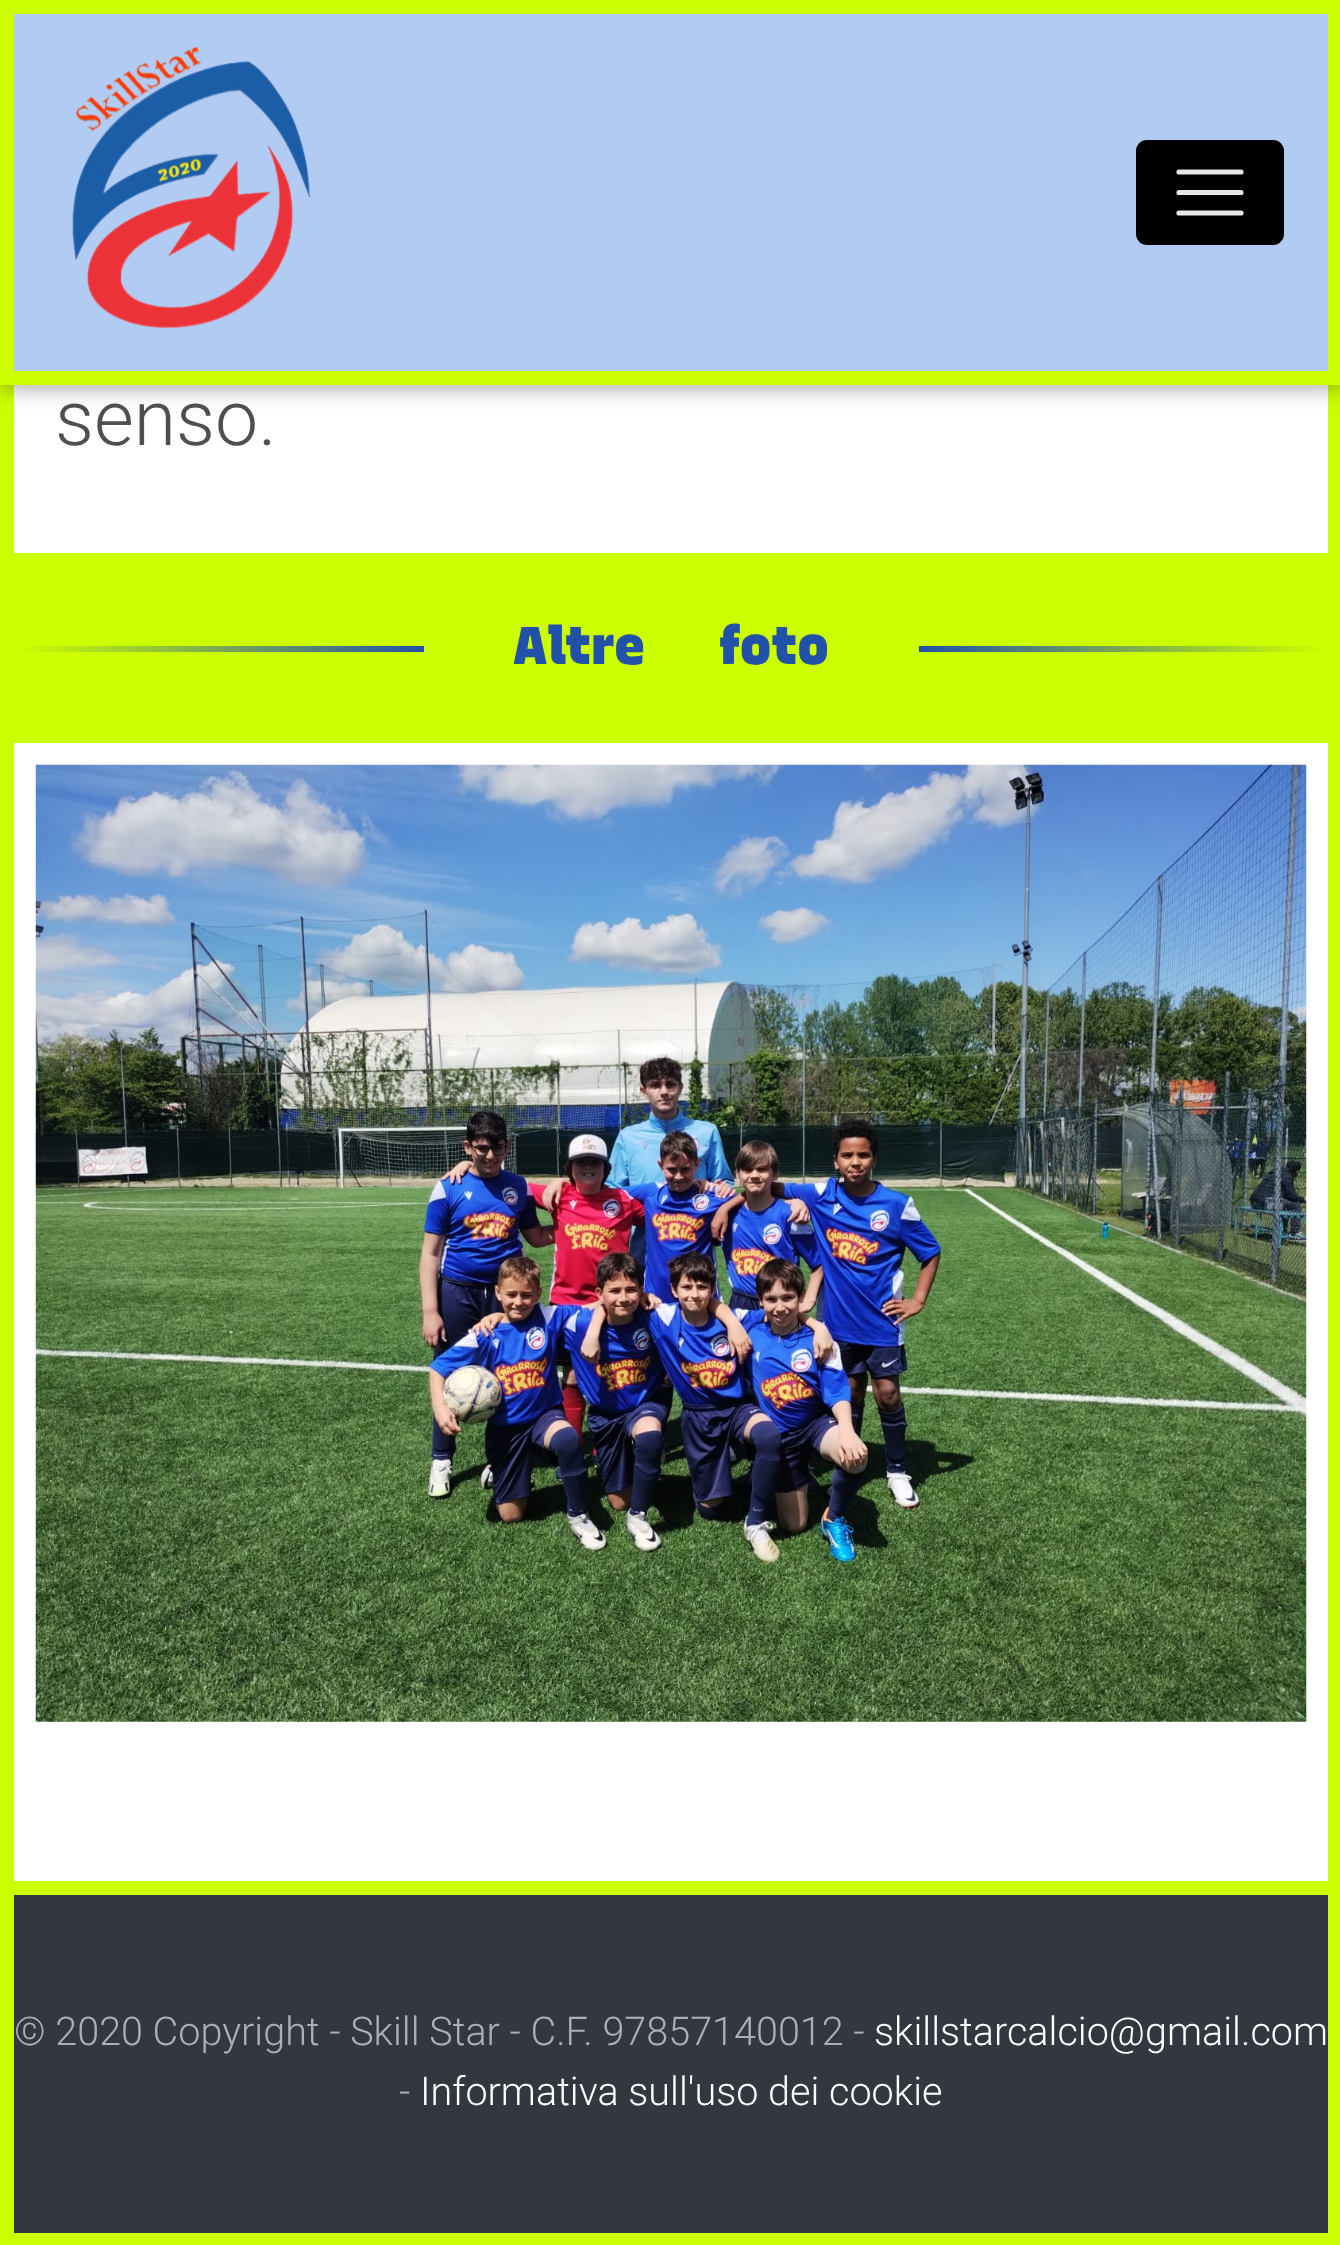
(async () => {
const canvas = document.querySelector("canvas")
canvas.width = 1340
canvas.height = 2245
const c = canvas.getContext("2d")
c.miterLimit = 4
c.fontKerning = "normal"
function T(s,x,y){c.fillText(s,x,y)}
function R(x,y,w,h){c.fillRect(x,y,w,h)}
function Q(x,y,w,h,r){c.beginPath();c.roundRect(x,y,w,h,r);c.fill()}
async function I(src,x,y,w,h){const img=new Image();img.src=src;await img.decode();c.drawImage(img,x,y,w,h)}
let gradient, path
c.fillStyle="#fff"
R(0,0,1340,2245)
c.strokeStyle="#cf0"
c.lineWidth=14
c.strokeRect(7,-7,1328,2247)
c.fillStyle="#0000001f"
c.filter="blur(14px)"
c.beginPath()
c.rect(0,6,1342,385)
c.fill()
c.filter="none"
c.fillStyle="#00000029"
c.filter="blur(7px)"
c.beginPath()
c.rect(0,6,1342,385)
c.fill()
c.filter="none"
c.fillStyle="#b2cbf2"
c.beginPath()
c.rect(7,7,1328,371)
c.fill()
c.stroke()
await I("1.png",72,47,239,282)
c.fillStyle="#000"
Q(1136,140,148,105,11)
path = new Path2D("M1179 172h62m-62 20.5h62m-62 20.5h62")
c.strokeStyle="#e6e6e6"
c.lineWidth=5.2
c.lineCap="round"
c.stroke(path)
c.font="300 77px Roboto"
c.fillStyle="#4f4f4f"
T("senso.",55,445)
c.fillStyle="#cf0"
R(14,553,1314,190)
gradient = c.createLinearGradient(19,649,424,649)
gradient.addColorStop(0,"#cf0")
gradient.addColorStop(1,"#2251aa")
c.fillStyle = gradient
R(19,646,405,6)
c.wordSpacing="58px"
c.font="900 52.75px Recursive"
c.fillStyle="#2251aa"
T("Altre foto",513,664)
gradient = c.createLinearGradient(1323,649,919,649)
gradient.addColorStop(0,"#cf0")
gradient.addColorStop(1,"#2251aa")
c.fillStyle = gradient
R(919,646,404,6)
await I("2.png",35,764,1272,958)
c.fillStyle="#cf0"
R(14,1881,1314,14)
c.fillStyle="#323740"
R(14,1895,1314,338)
c.wordSpacing="0px"
c.font="300 39.6px Roboto"
c.fillStyle="#adafb3"
T("© 2020 Copyright - Skill Star - C.F. 97857140012 -",14,2045)
c.fillStyle="#fff"
T("skillstarcalcio@gmail.com",874,2045)
c.fillStyle="#adafb3"
T("-",399,2105)
c.fillStyle="#fff"
T("Informativa sull'uso dei cookie",420,2105)
})()
